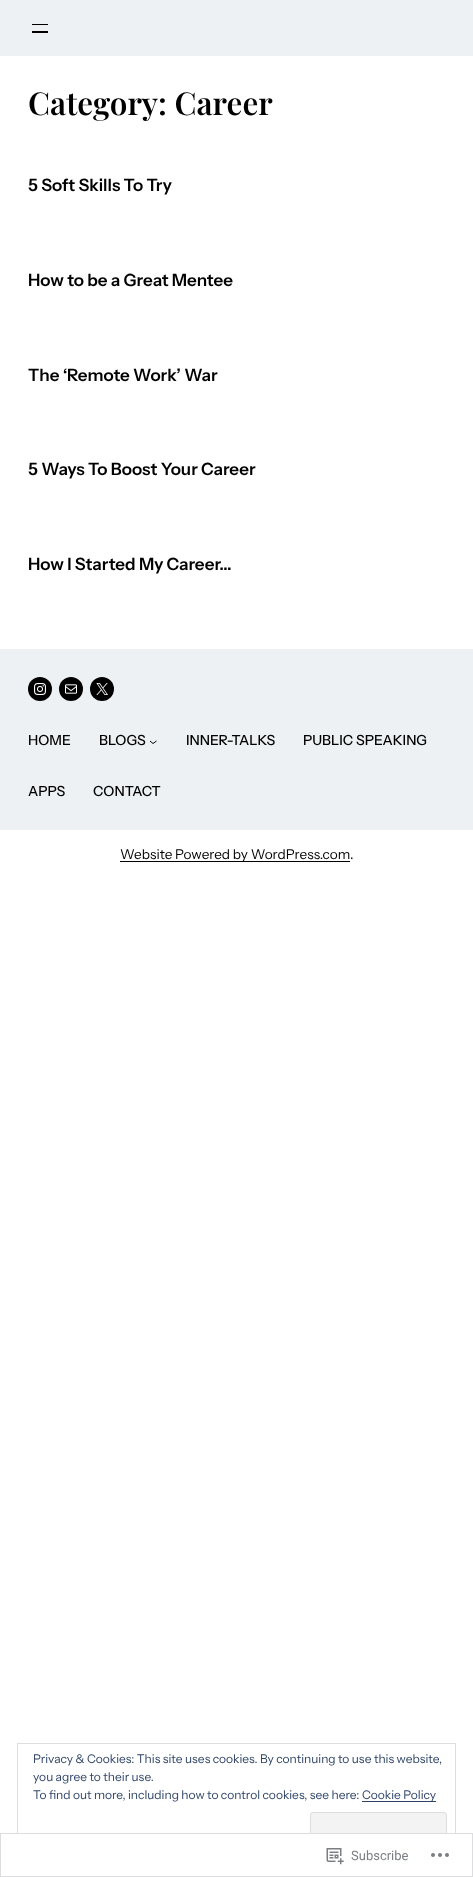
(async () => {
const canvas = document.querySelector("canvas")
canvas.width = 473
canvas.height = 1877
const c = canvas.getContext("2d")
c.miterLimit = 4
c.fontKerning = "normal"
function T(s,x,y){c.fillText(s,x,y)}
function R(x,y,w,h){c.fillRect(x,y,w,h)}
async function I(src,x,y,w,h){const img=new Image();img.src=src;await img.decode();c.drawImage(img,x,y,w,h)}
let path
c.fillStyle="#fff"
R(0,0,473,1877)
c.fillStyle="#edf1f4"
R(0,0,473,56)
c.fillStyle="#000"
R(32,24,16,1)
R(32,31,16,2)
c.font="600 31.5px Playfair Display"
T("Category: Career",28,115)
c.font="600 17px Instrument Sans"
T("5 Soft Skills To Try",28,191)
T("How to be a Great Mentee",28,286)
T("The ‘Remote Work’ War",28,381)
T("5 Ways To Boost Your Career",28,475)
T("How I Started My Career…",28,570)
c.fillStyle="#edf1f4"
R(0,649,473,181)
c.fillStyle="#000"
c.beginPath()
c.arc(40,689,12,0,7)
c.fill()
await I("1.png",34,683,12,12)
c.beginPath()
c.arc(71,689,12,0,7)
c.fill()
await I("2.png",65,684,12,10)
c.beginPath()
c.arc(102,689,12,0,7)
c.fill()
await I("3.png",96,683,12,12)
c.font="500 14px Instrument Sans"
T("HOME",28,745)
T("BLOGS",99,745)
path = new Path2D("M150 741l3 2.5l3.5-2.5")
c.strokeStyle="#000"
c.stroke(path)
T("INNER-TALKS",186,745)
T("PUBLIC SPEAKING",303,745)
T("APPS",28,796)
T("CONTACT",93,796)
R(120,861,230,1)
c.font="13.6px Instrument Sans"
T("Website Powered by WordPress.com",120,859)
T(".",350,859)
c.strokeStyle="#dedede"
c.strokeRect(17.5,1743.5,438,116)
c.font="12px Instrument Sans"
c.fillStyle="#2e4467"
T("Privacy & Cookies: This site uses cookies. By continuing to use this website,",33,1763)
T("you agree to their use.",33,1781)
T("To find out more, including how to control cookies, see here:",33,1799)
R(362,1801,74,1)
T("Cookie Policy",362,1799)
c.fillStyle="#f3f3f3"
c.beginPath()
c.roundRect(310.5,1812.5,136,38,2.5)
c.fill()
c.stroke()
c.fillStyle="#fffffffa"
R(17,1833,439,27)
c.strokeStyle="#dcdcdefa"
c.strokeRect(.5,1833.5,472,43)
await I("4.png",326,1848,18,17)
c.font="13px Roboto"
c.fillStyle="#7b7f84"
T("Subscribe",351,1860)
await I("5.png",431,1853,18,4)
})()
